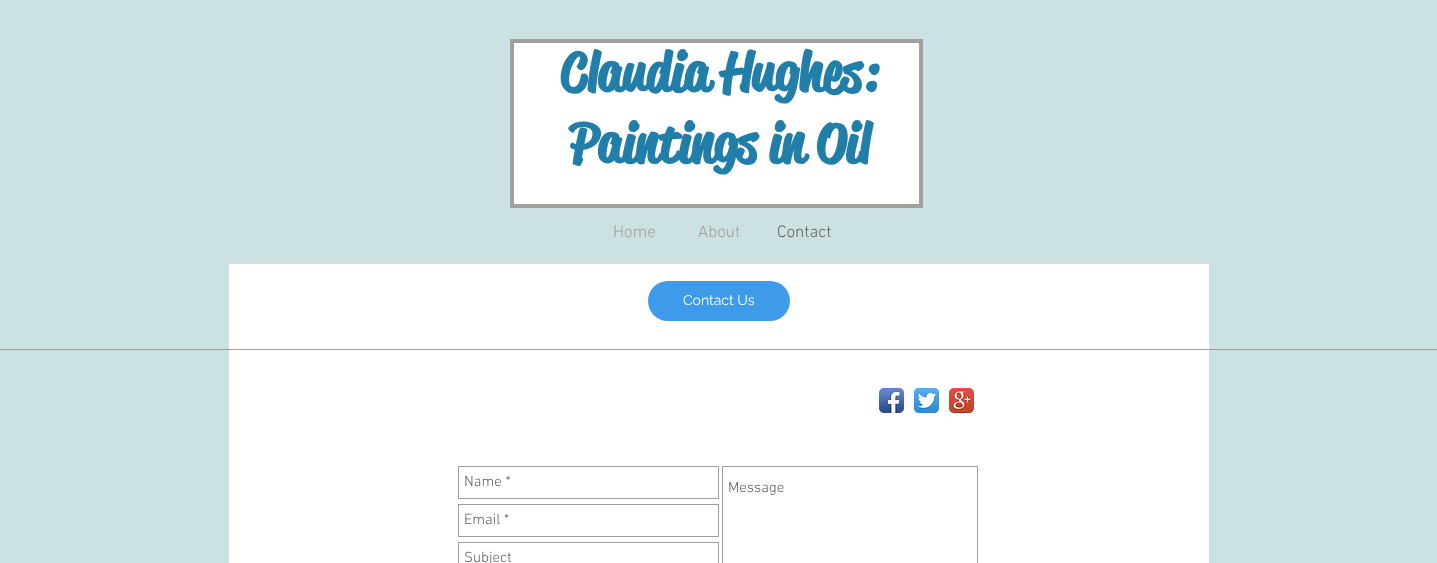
(async () => {
const canvas = document.querySelector("canvas")
canvas.width = 1437
canvas.height = 563
const c = canvas.getContext("2d")
c.miterLimit = 4
c.fontKerning = "normal"
function T(s,x,y){c.fillText(s,x,y)}
function R(x,y,w,h){c.fillRect(x,y,w,h)}
function Q(x,y,w,h,r){c.beginPath();c.roundRect(x,y,w,h,r);c.fill()}
async function I(src,x,y,w,h){const img=new Image();img.src=src;await img.decode();c.drawImage(img,x,y,w,h)}
c.fillStyle="#cce2e2"
R(0,0,1437,563)
c.fillStyle="#fff"
c.beginPath()
c.rect(512,41,409,165)
c.fill()
c.strokeStyle="#a0a09f"
c.lineWidth=4
c.stroke()
c.font="bold 54px 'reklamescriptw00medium'"
c.fillStyle="#207ea9"
T("Claudia Hughes:",560,91)
T("Paintings in Oil",569,162)
c.font="300 17px 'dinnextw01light'"
c.fillStyle="#a0a09f"
T("Home",613,237)
T("About",698,237)
c.fillStyle="#605e5e"
T("Contact",777,237)
c.fillStyle="#fff"
R(229,264,980,299)
c.fillStyle="#3d9be9"
Q(648,281,142,40,20)
c.font="14px Raleway"
c.fillStyle="#fff"
T("Contact Us",683,305)
c.fillStyle="#a0a09f"
R(0,349,1437,1)
await I("1.png",879,388,25,25)
await I("2.png",914,388,25,25)
await I("3.png",949,388,25,25)
c.lineWidth=1
c.strokeRect(458.5,466.5,260,32)
c.font="300 15px 'dinnextw01light'"
c.fillStyle="#605e5e"
T("Name *",464,486)
c.strokeRect(722.5,466.5,255,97)
T("Message",728,492)
c.strokeRect(458.5,504.5,260,32)
T("Email *",464,524)
c.strokeRect(458.5,542.5,260,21)
T("Subject",464,562)
})()
